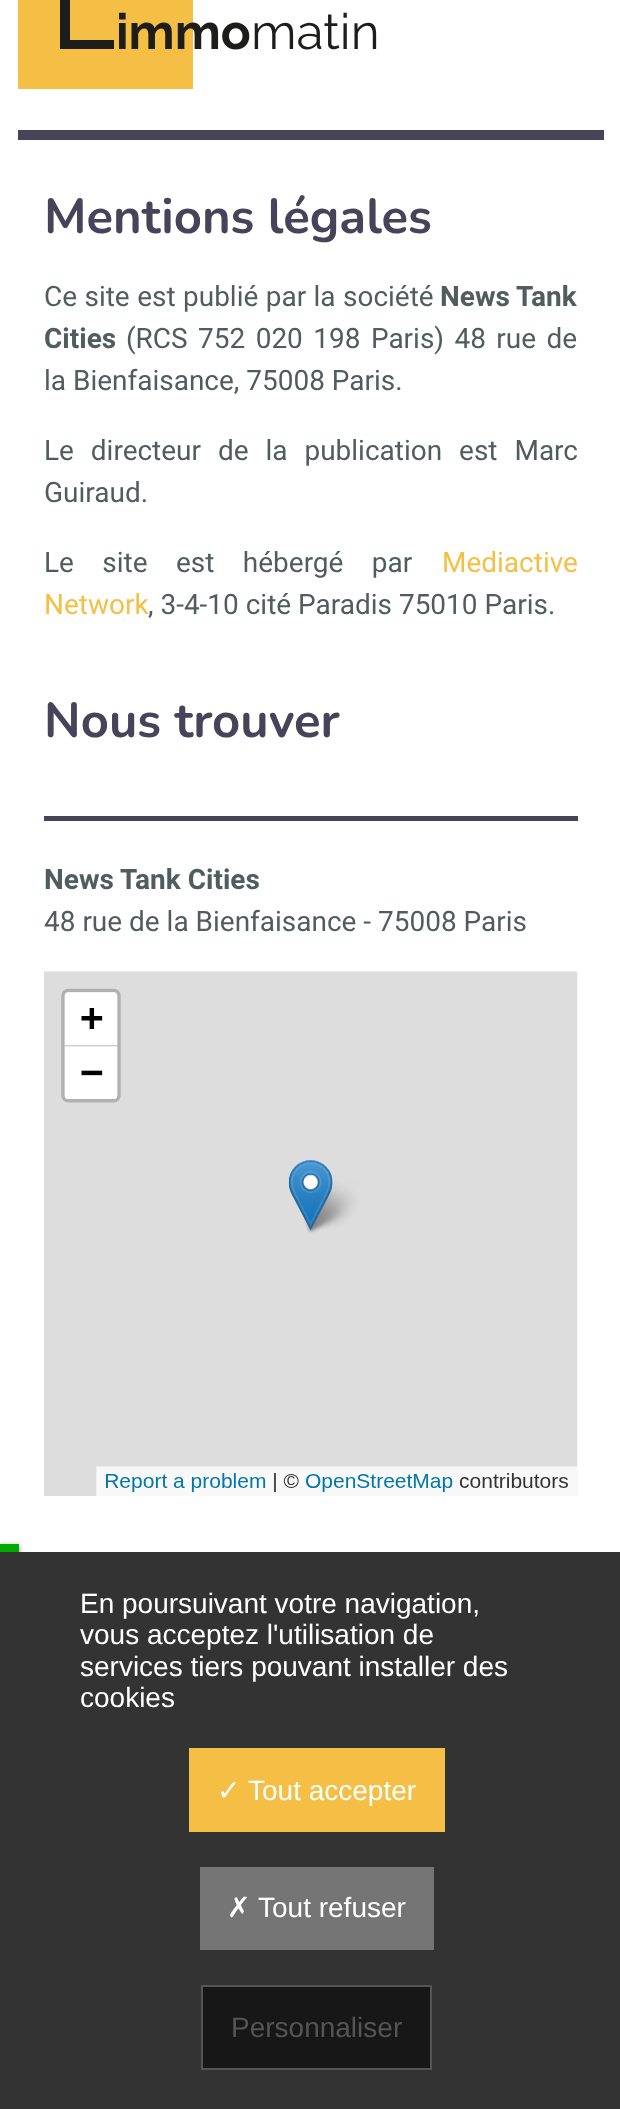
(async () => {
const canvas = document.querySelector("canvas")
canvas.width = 620
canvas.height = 2109
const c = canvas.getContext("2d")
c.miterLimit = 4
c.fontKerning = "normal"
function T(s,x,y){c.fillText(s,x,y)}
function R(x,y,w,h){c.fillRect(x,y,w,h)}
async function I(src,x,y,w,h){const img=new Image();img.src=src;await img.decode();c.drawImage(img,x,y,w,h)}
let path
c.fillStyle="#fff"
R(0,0,620,2109)
c.fillStyle="#f5bf45"
R(18,0,175,89)
c.fillStyle="#1d1d1b"
path = new Path2D("M114 40h-44v-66h85v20h9v-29h-104v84h54z")
c.fill(path)
c.font="100 49.5px Raleway"
T("immo",116,49)
c.font="100 49.5px 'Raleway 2'"
T("matin",251,49)
c.fillStyle="#47445a"
R(18,130,586,10)
c.font="200 49px Nunito"
T("Mentions légales",44,233)
c.wordSpacing="0.5px"
c.font="28px Roboto"
c.fillStyle="#515c5d"
T("Ce site est publié par la société",44,306)
c.wordSpacing="0px"
c.font="bold 28px Roboto"
T("News Tank",440,306)
T("Cities",44,348)
c.wordSpacing="3.5px"
c.font="28px Roboto"
T("(RCS 752 020 198 Paris) 48 rue de",126,348)
c.wordSpacing="0px"
T("la Bienfaisance, 75008 Paris.",44,390)
c.wordSpacing="10px"
T("Le directeur de la publication est Marc",44,460)
c.wordSpacing="0px"
T("Guiraud.",44,502)
c.wordSpacing="21.5px"
T("Le site est hébergé par",44,572)
c.wordSpacing="0px"
c.fillStyle="#f5bf45"
T("Mediactive",442,572)
T("Network",44,614)
c.fillStyle="#515c5d"
T(", 3-4-10 cité Paradis 75010 Paris.",148,614)
c.fillStyle="#47445a"
R(44,816,534,5)
c.font="200 49px Nunito"
T("Nous trouver",44,737)
c.font="bold 28px Roboto"
c.fillStyle="#515c5d"
T("News Tank Cities",44,889)
c.font="28px Roboto"
T("48 rue de la Bienfaisance - 75008 Paris",44,931)
await I("1.png",44,971,534,525)
c.fillStyle="#555"
c.filter="blur(2px)"
c.beginPath()
c.rect(0,1545,19,9)
c.fill()
c.filter="none"
c.fillStyle="#fff"
c.filter="blur(2px)"
c.beginPath()
c.rect(0,1544,19,8)
c.fill()
c.filter="none"
c.fillStyle="#0a0"
R(0,1544,19,8)
c.fillStyle="#333"
R(0,1552,620,557)
c.font="28px Liberation Sans"
c.fillStyle="#fff"
T("En poursuivant votre navigation,",80,1613)
T("vous acceptez l'utilisation de",80,1644)
T("services tiers pouvant installer des",80,1676)
T("cookies",80,1707)
c.fillStyle="#f5bf45"
R(189,1748,256,84)
c.font="28px DejaVu Sans"
c.fillStyle="#fff"
T("✓",217,1800)
c.font="28px Liberation Sans"
T("Tout accepter",248,1800)
c.fillStyle="#757575"
R(200,1867,234,83)
c.font="28px DejaVu Sans"
c.fillStyle="#fff"
T("✗",227,1917)
c.font="28px Liberation Sans"
T("Tout refuser",258,1917)
c.fillStyle="#171717"
c.beginPath()
c.rect(202,1986,229,83)
c.fill()
c.strokeStyle="#555"
c.lineWidth=2
c.stroke()
c.fillStyle="#555"
T("Personnaliser",231,2037)
})()
